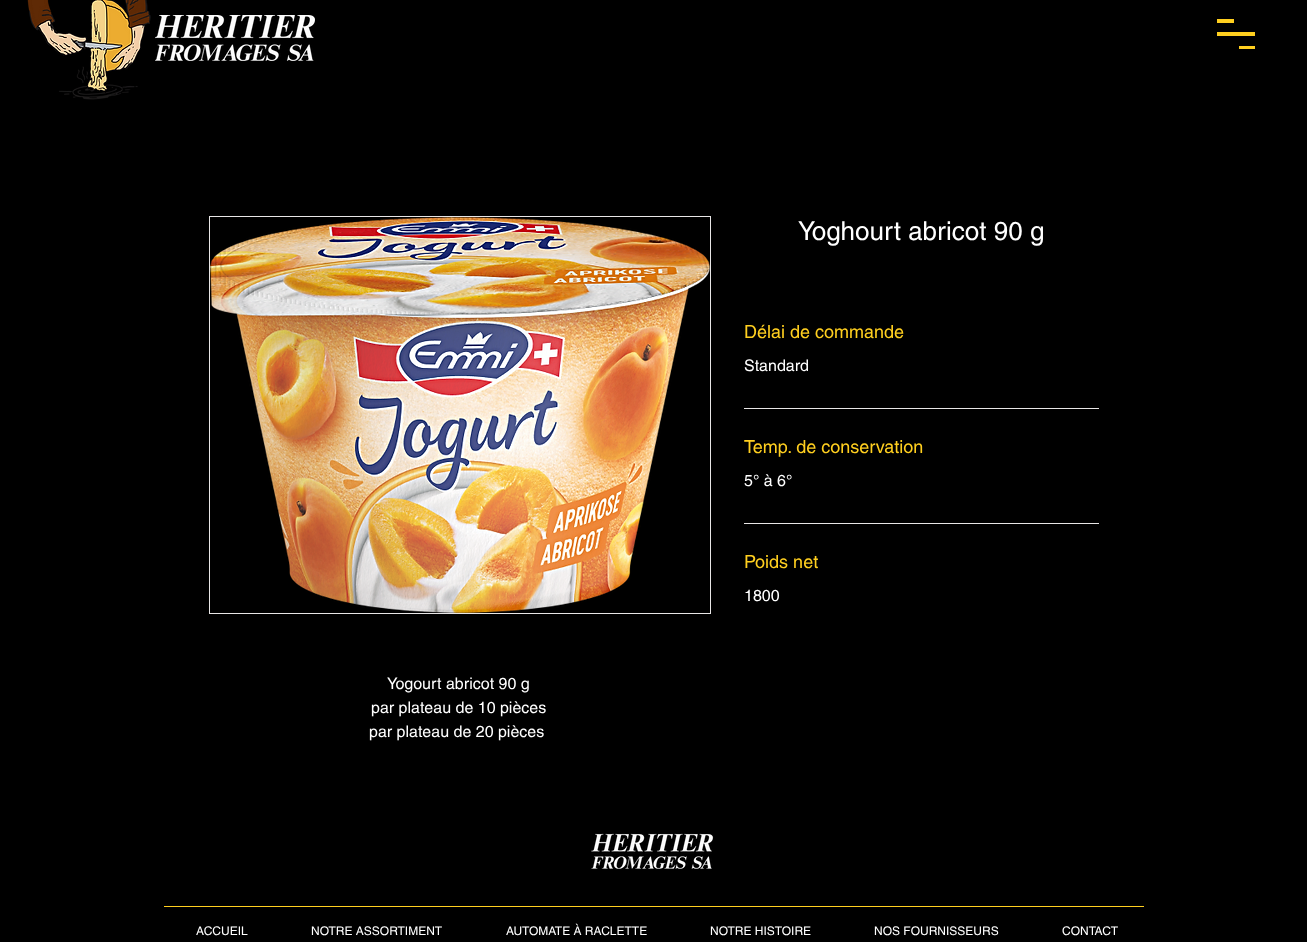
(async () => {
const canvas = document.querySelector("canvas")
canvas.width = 1307
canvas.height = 942
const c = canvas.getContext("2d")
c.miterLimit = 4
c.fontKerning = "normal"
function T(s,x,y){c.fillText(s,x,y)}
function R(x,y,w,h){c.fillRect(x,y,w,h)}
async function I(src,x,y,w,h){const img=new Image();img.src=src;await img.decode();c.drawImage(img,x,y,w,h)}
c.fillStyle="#000"
R(0,0,1307,942)
await I("1.png",27,0,124,100)
await I("2.png",155,15,160,46)
c.fillStyle="#ffcf1f"
R(1217,19,17,4)
R(1239,46,16,3)
R(1217,32,38,4)
c.font="26px helvetica"
c.fillStyle="#fff"
T("Yoghourt abricot 90 g",798,240)
c.fillStyle="#e8e6e6"
R(744,408,355,1)
c.font="18px helvetica"
c.fillStyle="#ffcf1f"
T("Délai de commande",744,338)
c.font="16px helvetica"
c.fillStyle="#fff"
T("Standard",744,371)
c.fillStyle="#e8e6e6"
R(744,523,355,1)
c.font="18px helvetica"
c.fillStyle="#ffcf1f"
T("Temp. de conservation",744,453)
c.font="16px helvetica"
c.fillStyle="#fff"
T("5° à 6°",744,486)
c.font="18px helvetica"
c.fillStyle="#ffcf1f"
T("Poids net",744,568)
c.font="16px helvetica"
c.fillStyle="#fff"
T("1800",744,601)
c.strokeStyle="#e8e6e6"
c.strokeRect(209.5,216.5,501,397)
await I("3.png",210,217,500,396)
T("Yogourt abricot 90 g",387,689)
T("par plateau de 10 pièces",371,713)
T("par plateau de 20 pièces",369,737)
await I("4.png",591,833,123,36)
c.fillStyle="#ffcf1f"
R(164,906,980,1)
c.font="12px helvetica"
c.fillStyle="#fff"
T("ACCUEIL",196,935)
T("NOTRE ASSORTIMENT",311,935)
T("AUTOMATE À RACLETTE",506,935)
T("NOTRE HISTOIRE",710,935)
T("NOS FOURNISSEURS",874,935)
T("CONTACT",1062,935)
})()
